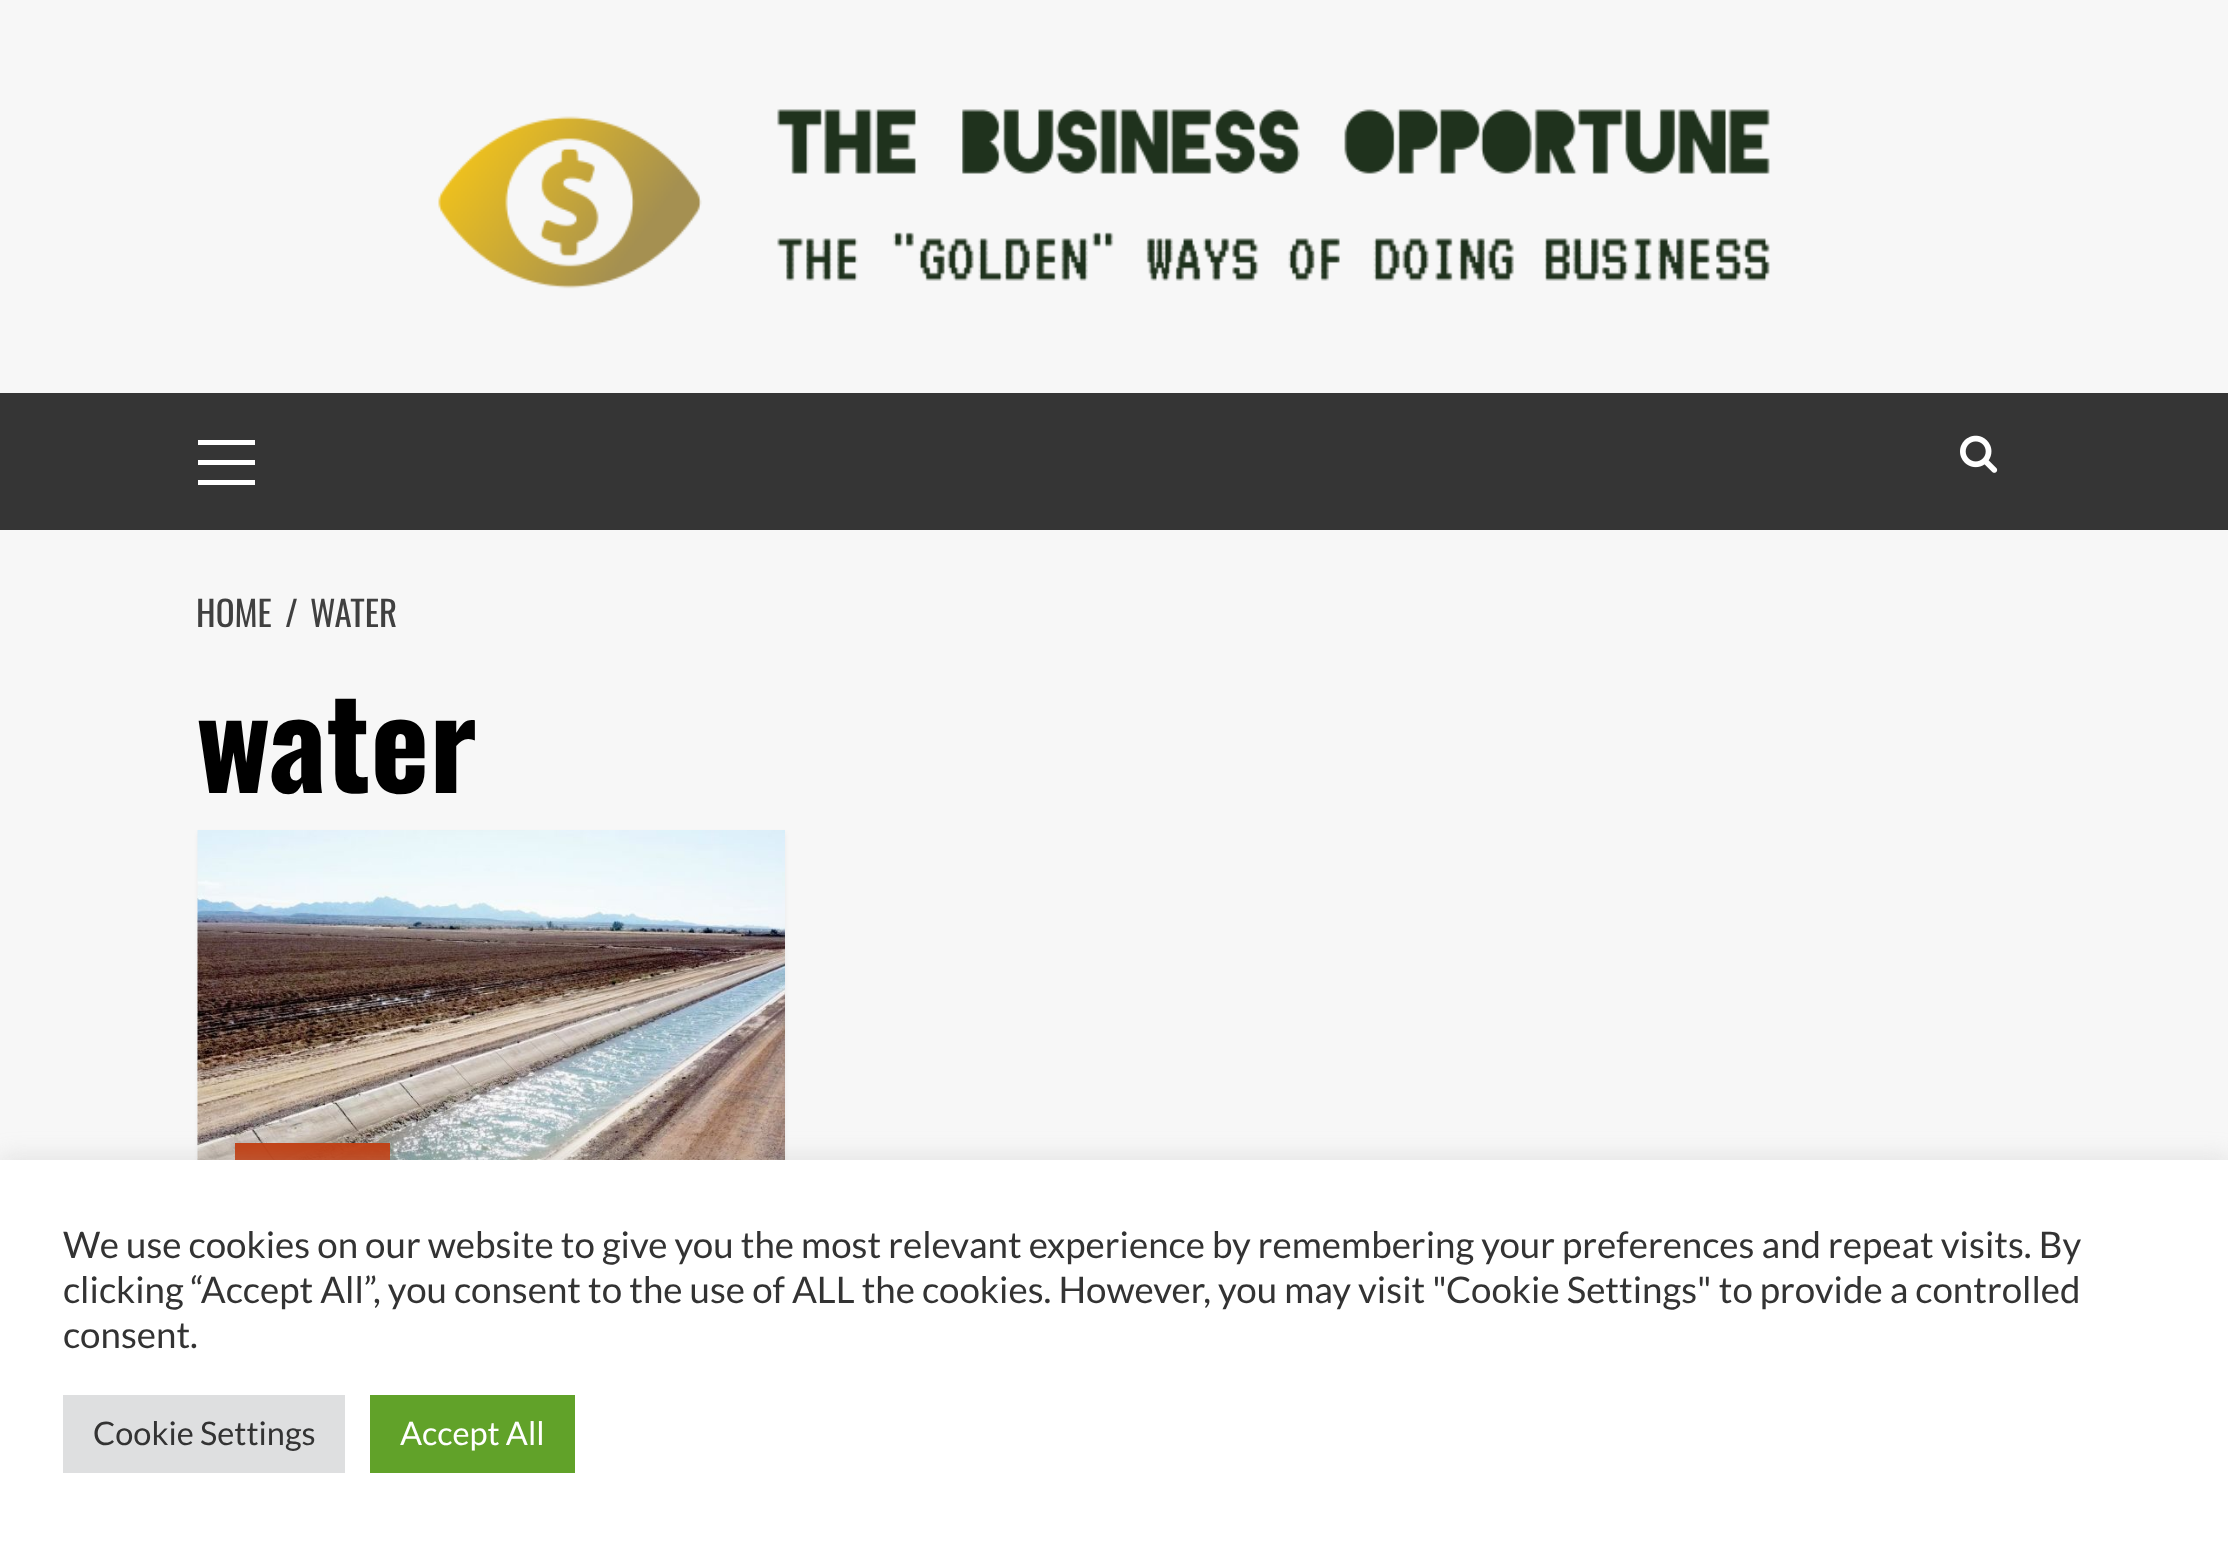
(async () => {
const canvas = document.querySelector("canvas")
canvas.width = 2228
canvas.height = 1546
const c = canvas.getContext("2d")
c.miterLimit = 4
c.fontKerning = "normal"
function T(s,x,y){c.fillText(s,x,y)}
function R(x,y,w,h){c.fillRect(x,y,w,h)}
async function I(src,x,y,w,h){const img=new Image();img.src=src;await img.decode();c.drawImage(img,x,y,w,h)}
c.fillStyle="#f7f7f7"
R(0,0,2228,1546)
await I("1.png",438,109,1332,180)
c.fillStyle="#353535"
R(0,393,2228,137)
c.fillStyle="#fff"
R(198,460,57,5)
R(198,440,57,5)
R(198,480,57,5)
await I("2.png",1960,435,38,38)
c.font="35px Oswald"
c.fillStyle="#404040"
T("HOME",196,627)
T("/",285,627)
T("WATER",310,627)
c.font="bold 125px Oswald"
c.fillStyle="#000"
T("water",196,793)
c.fillStyle="#0000000d"
c.filter="blur(2.5px)"
c.beginPath()
c.rect(198,833,587,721)
c.fill()
c.filter="none"
await I("3.png",197,830,588,330)
c.fillStyle="#c23b0ef5"
R(235,1143,155,17)
c.fillStyle="#acabab4d"
c.filter="blur(12.5px)"
c.beginPath()
c.rect(0,1158,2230,387)
c.fill()
c.filter="none"
c.fillStyle="#fff"
R(0,1160,2228,386)
c.font="36.67px Lato"
c.fillStyle="#333"
T("We use cookies on our website to give you the most relevant experience by remembering your preferences and repeat visits. By",63,1258)
T("clicking “Accept All”, you consent to the use of ALL the cookies. However, you may visit \"Cookie Settings\" to provide a controlled",63,1303)
T("consent.",63,1348)
c.fillStyle="#dedfe0"
R(63,1395,282,78)
c.font="32.5px Lato"
c.fillStyle="#333"
T("Cookie Settings",93,1445)
c.fillStyle="#61a229"
R(370,1395,205,78)
c.fillStyle="#fff"
T("Accept All",400,1445)
})()
